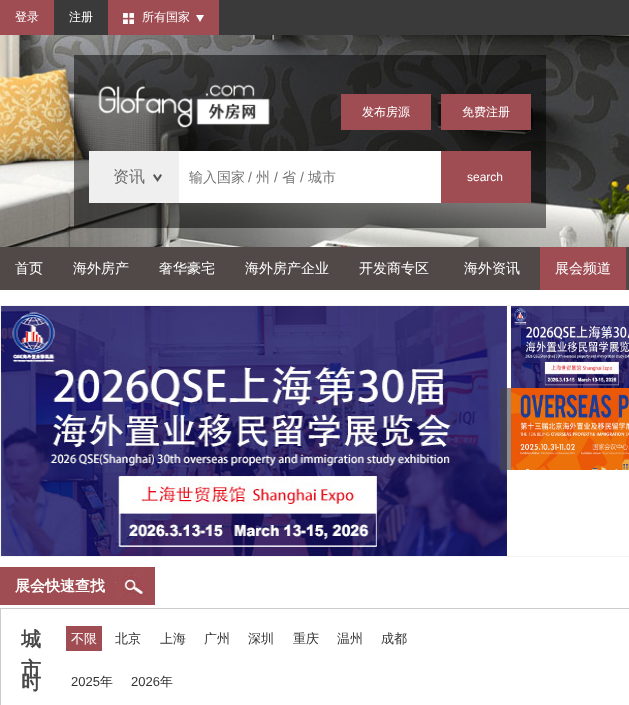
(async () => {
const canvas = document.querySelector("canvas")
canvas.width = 629
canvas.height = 705
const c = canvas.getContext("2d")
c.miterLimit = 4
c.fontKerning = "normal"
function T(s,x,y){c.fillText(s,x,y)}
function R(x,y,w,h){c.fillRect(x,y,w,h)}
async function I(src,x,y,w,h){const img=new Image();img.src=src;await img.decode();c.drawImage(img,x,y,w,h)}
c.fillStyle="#fff"
R(0,0,629,705)
c.fillStyle="#3a3a3a"
R(54,0,575,35)
c.fillStyle="#a04c53"
R(0,0,54,35)
c.font="500 12px WenQuanYi Zen Hei"
c.fillStyle="#fff"
T("登录",15,21)
T("注册",69,21)
c.fillStyle="#a04c53"
R(108,0,111,35)
await I("1.png",123,13,11,11)
c.fillStyle="#fff"
T("所有国家",142,21)
await I("2.png",196,15,8,7)
await I("3.png",0,35,629,212)
c.fillStyle="#00000080"
R(74,55,472,173)
await I("4.png",98,84,172,44)
c.fillStyle="#a04c53"
R(341,94,90,36)
c.fillStyle="#fff"
T("发布房源",362,116)
c.fillStyle="#a04c53"
R(441,94,90,36)
c.fillStyle="#fff"
T("免费注册",462,116)
c.fillStyle="#efefef"
R(89,151,90,52)
c.font="500 16px WenQuanYi Zen Hei"
c.fillStyle="#6a6a6a"
T("资讯",113,182)
await I("5.png",153,174,9,8)
c.fillStyle="#fff"
R(179,151,262,52)
c.save()
c.beginPath()
c.rect(189,169,252,18)
c.clip()
c.font="500 14px WenQuanYi Zen Hei"
c.fillStyle="#757575"
T("输入国家",189,182)
c.restore()
c.font="14px Liberation Sans"
c.fillStyle="#757575"
T("/",248,182)
c.font="500 14px WenQuanYi Zen Hei"
T("州",256,182)
c.font="14px Liberation Sans"
T("/",274,182)
c.font="500 14px WenQuanYi Zen Hei"
T("省",282,182)
c.font="14px Liberation Sans"
T("/",300,182)
c.font="500 14px WenQuanYi Zen Hei"
T("城市",308,182)
c.fillStyle="#a04c53"
R(441,151,90,52)
c.font="12px Liberation Sans"
c.fillStyle="#fff"
T("search",467,181)
c.fillStyle="#514947"
R(0,247,629,43)
c.font="500 14px WenQuanYi Zen Hei"
c.fillStyle="#fff"
T("首页",15,273)
T("海外房产",73,273)
T("奢华豪宅",159,273)
T("海外房产企业",245,273)
T("开发商专区",359,273)
T("海外资讯",464,273)
c.fillStyle="#a04c53"
R(540,247,86,43)
c.fillStyle="#fff"
T("展会频道",555,273)
c.strokeStyle="#f4f4f4"
c.strokeRect(.5,305.5,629,251)
await I("6.png",1,306,506,250)
await I("7.png",511,306,118,82)
c.fillStyle="#43434399"
R(500,388,11,82)
await I("8.png",511,388,118,82)
await I("9.png",0,567,155,38)
c.font="bold 15px WenQuanYi Zen Hei"
c.fillStyle="#fff"
T("展会快速查找",15,591)
c.strokeStyle="#ccc"
c.strokeRect(.5,608.5,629,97)
c.font="bold 20px WenQuanYi Zen Hei"
c.fillStyle="#484848"
T("城",21,646)
T("市",21,676)
c.fillStyle="#a04c53"
R(66,626,36,25)
c.font="500 13px WenQuanYi Zen Hei"
c.fillStyle="#fff"
T("不限",71,643)
c.fillStyle="#333"
T("北京",115,643)
T("上海",160,643)
T("广州",204,643)
T("深圳",248,643)
T("重庆",293,643)
T("温州",337,643)
T("成都",381,643)
c.font="bold 20px WenQuanYi Zen Hei"
c.fillStyle="#484848"
T("时",21,689)
c.font="13px Liberation Sans"
c.fillStyle="#333"
T("2025",71,686)
c.font="500 13px WenQuanYi Zen Hei"
T("年",100,686)
c.font="13px Liberation Sans"
T("2026",131,686)
c.font="500 13px WenQuanYi Zen Hei"
T("年",160,686)
})()
